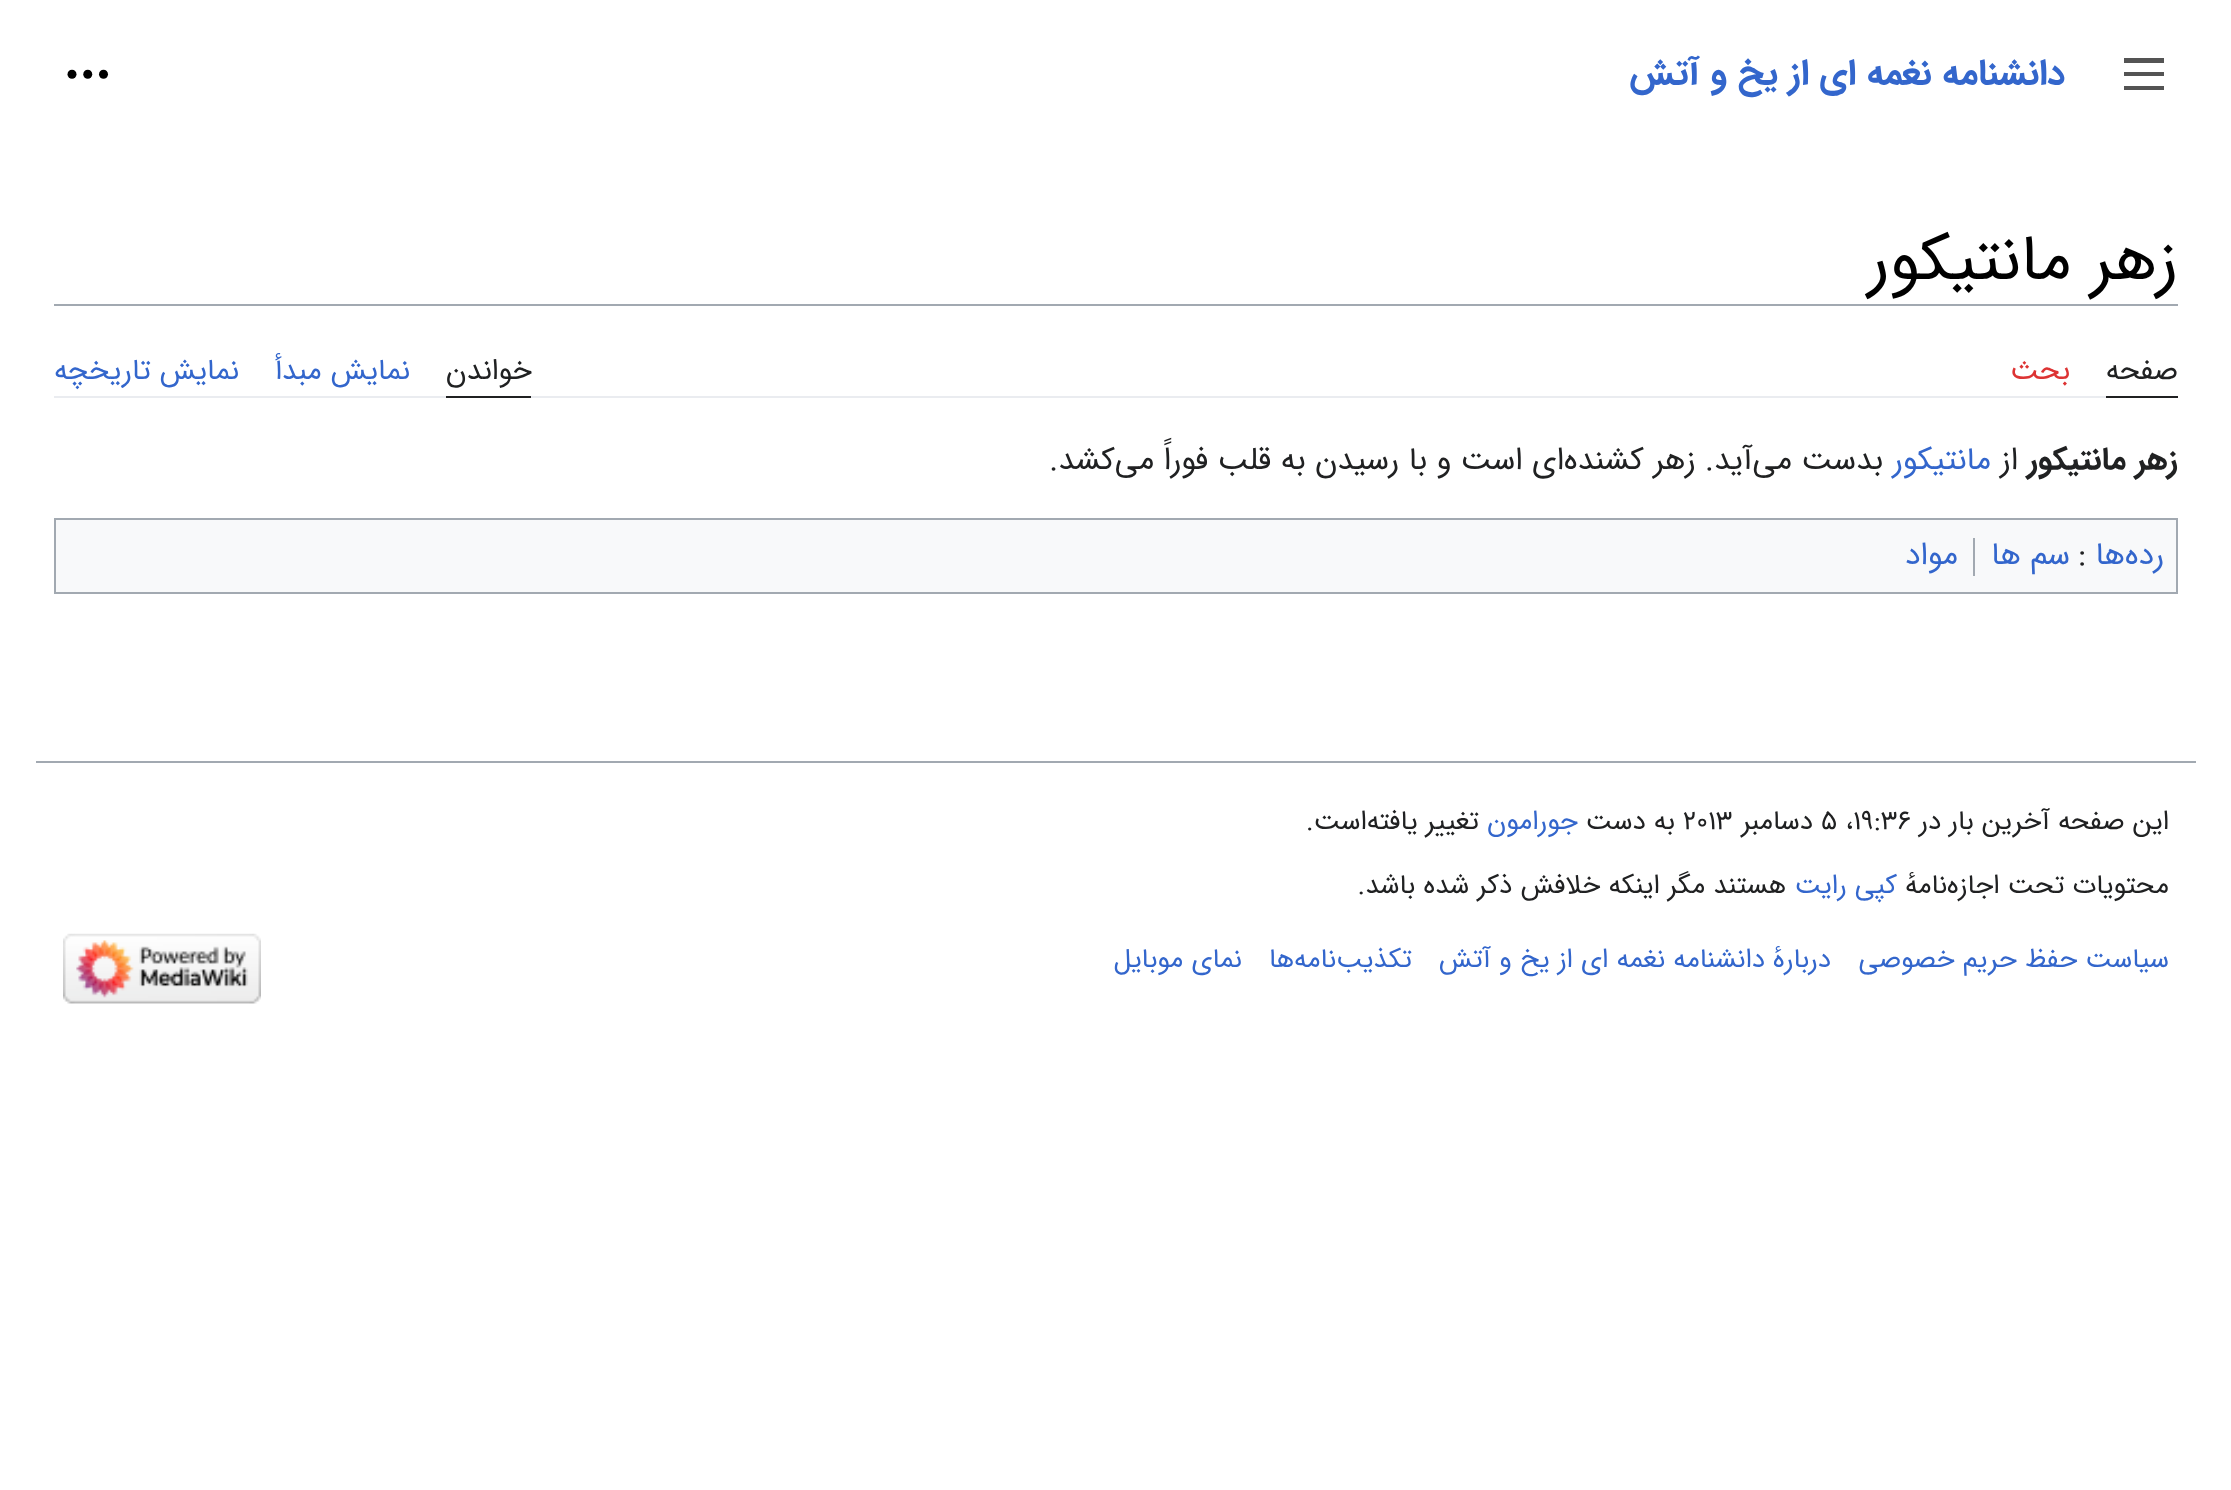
(async () => {
const canvas = document.querySelector("canvas")
canvas.width = 2231
canvas.height = 1490
const c = canvas.getContext("2d")
c.miterLimit = 4
c.fontKerning = "normal"
function T(s,x,y){c.fillText(s,x,y)}
function R(x,y,w,h){c.fillRect(x,y,w,h)}
async function I(src,x,y,w,h){const img=new Image();img.src=src;await img.decode();c.drawImage(img,x,y,w,h)}
let path
c.fillStyle="#fff"
R(0,0,2231,1490)
c.fillStyle="#545454"
path = new Path2D("M2124 58v5h40v-5zm0 18h40v-4h-40zm0 14h40v-4h-40z")
c.fill(path)
c.direction="rtl"
c.font="bold 36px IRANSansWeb"
c.fillStyle="#36c"
T("دانشنامه نغمه ای از یخ و آتش",2065,84)
await I("1.png",67,69,42,10)
c.fillStyle="#a2a9b1"
R(54,304,2124,2)
c.font="65px IRANSansWeb"
c.fillStyle="#000"
T("زهر مانتیکور",2178,279)
c.fillStyle="#eaecf0"
R(54,396,2052,2)
c.fillStyle="#202122"
R(2106,396,72,2)
c.font="29.25px IRANSansWeb"
T("صفحه",2178,379)
c.fillStyle="#d33"
T("بحث",2070,379)
c.fillStyle="#202122"
R(446,396,85,2)
T("خواندن",532,379)
c.fillStyle="#36c"
T("نمایش مبدأ",410,379)
T("نمایش تاریخچه",239,379)
c.font="bold 31.5px IRANSansWeb"
c.fillStyle="#202122"
T("زهر مانتیکور",2178,469)
c.font="31.5px IRANSansWeb"
T("از",2018,469)
c.fillStyle="#36c"
T("مانتیکور",1991,469)
c.fillStyle="#202122"
T("بدست می‌آید. زهر کشنده‌ای‌ است و با رسیدن به قلب فوراً می‌کشد.",1883,469)
c.fillStyle="#f8f9fa"
c.beginPath()
c.rect(55,519,2122,74)
c.fill()
c.strokeStyle="#a2a9b1"
c.lineWidth=2
c.stroke()
c.fillStyle="#36c"
T("رده‌ها",2164,564)
c.direction="ltr"
c.fillStyle="#202122"
T(":",2078,564)
c.direction="rtl"
c.fillStyle="#36c"
T("سم ها",2070,564)
c.fillStyle="#a2a9b1"
R(1973,538,2,38)
c.fillStyle="#36c"
T("مواد",1958,564)
c.fillStyle="#a2a9b1"
R(36,761,2160,2)
c.font="27px IRANSansWeb"
c.fillStyle="#202122"
T("این صفحه آخرین بار در ",2169,829)
c.direction="ltr"
T("۱۹:۳۶",1853,829)
c.direction="rtl"
T("، ",1853,829)
c.direction="ltr"
T("۵",1821,829)
c.direction="rtl"
T("دسامبر",1813,829)
c.direction="ltr"
T("۲۰۱۳",1683,829)
c.direction="rtl"
T("به دست",1675,829)
c.fillStyle="#36c"
T("جورامون",1578,829)
c.fillStyle="#202122"
T("تغییر یافته‌است.",1479,829)
T("محتویات تحت اجازه‌نامهٔ",2169,893)
c.fillStyle="#36c"
T("کپی رایت",1897,893)
c.fillStyle="#202122"
T("هستند مگر اینکه خلافش ذکر شده باشد.",1786,893)
c.fillStyle="#36c"
T("سیاست حفظ حریم خصوصی",2169,967)
T("دربارهٔ دانشنامه نغمه ای از یخ و آتش",1831,967)
T("تکذیب‌نامه‌ها",1412,967)
T("نمای موبایل",1242,967)
await I("2.png",63,933,198,71)
})()
